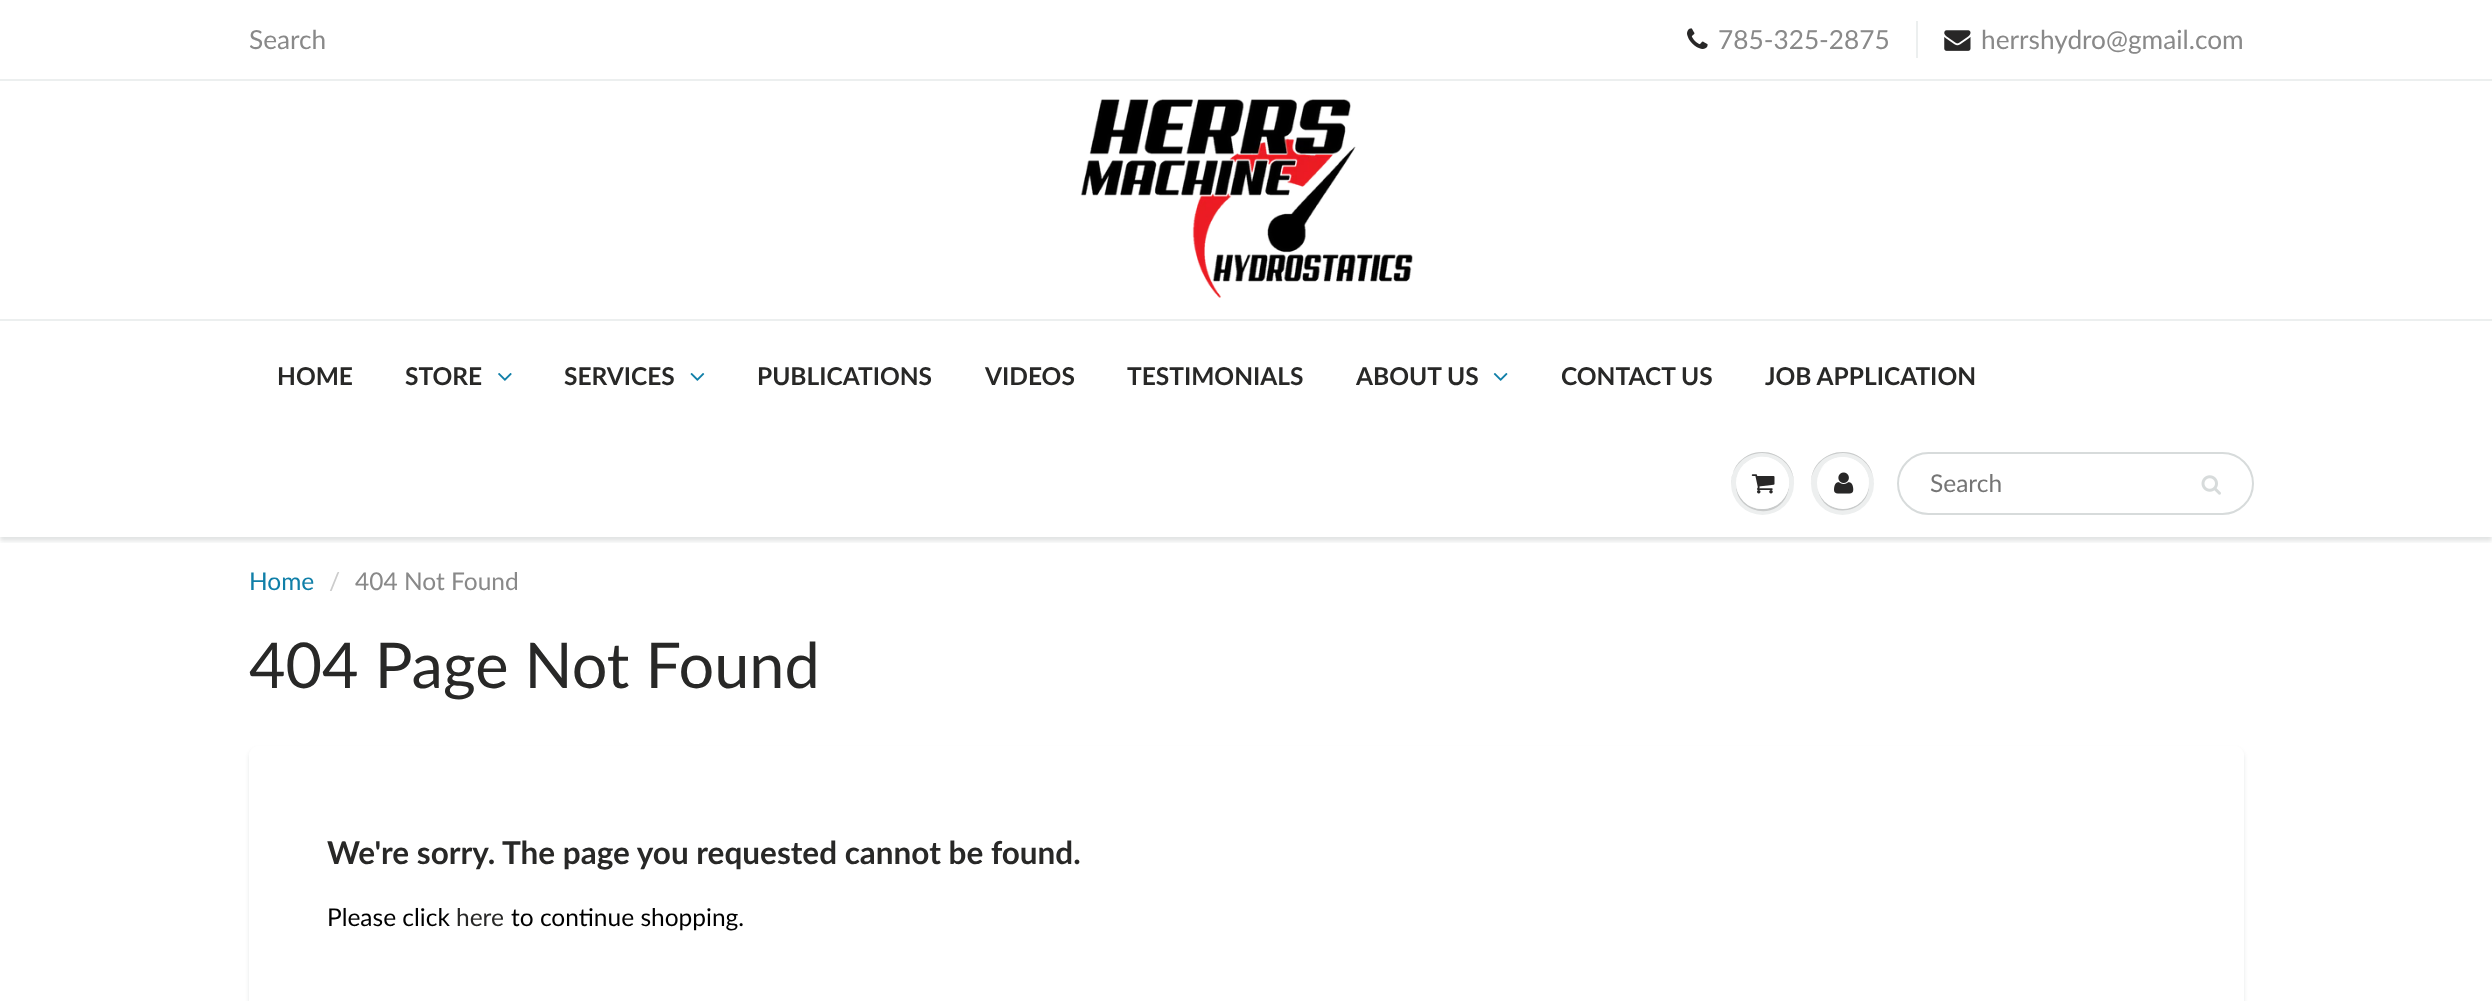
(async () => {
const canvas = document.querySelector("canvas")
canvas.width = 2492
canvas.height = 1001
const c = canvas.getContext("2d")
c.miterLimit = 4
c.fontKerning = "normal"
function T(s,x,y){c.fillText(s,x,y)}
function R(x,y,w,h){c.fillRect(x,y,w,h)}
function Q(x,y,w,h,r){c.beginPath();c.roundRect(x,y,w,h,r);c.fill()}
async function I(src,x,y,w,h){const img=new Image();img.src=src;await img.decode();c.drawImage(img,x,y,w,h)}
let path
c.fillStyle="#fff"
R(0,0,2492,1001)
c.font="26.25px Lato"
c.fillStyle="#898989"
T("Search",249,49)
await I("1.png",1687,28,21,21)
T("785-325-2875",1718,49)
c.fillStyle="#ecefef"
R(1916,21,2,37)
await I("2.png",1944,30,27,21)
c.fillStyle="#898989"
T("herrshydro@gmail.com",1981,49)
c.fillStyle="#ecefef"
R(0,79,2492,2)
await I("3.png",1080,99,333,199)
c.save()
c.beginPath()
c.rect(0,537,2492,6)
c.clip()
c.fillStyle="#0b191c1f"
c.filter="blur(2px)"
c.beginPath()
c.rect(0,322,2492,219)
c.fill()
c.filter="none"
c.restore()
R(0,319,2492,2)
c.font="bold 24.5px Lato"
c.fillStyle="#282827"
T("HOME",277,385)
T("STORE",405,385)
await I("4.png",498,373,14,8)
T("SERVICES",564,385)
await I("5.png",690,373,15,8)
T("PUBLICATIONS",757,385)
T("VIDEOS",985,385)
T("TESTIMONIALS",1127,385)
T("ABOUT US",1356,385)
await I("6.png",1493,373,15,8)
T("CONTACT US",1561,385)
T("JOB APPLICATION",1765,385)
c.fillStyle="#edefef"
c.beginPath()
c.arc(1762.5,483.5,31.5,0,7)
c.fill()
c.fillStyle="#c9cbcb"
path = new Path2D("M1762 453c18 0 32 14 32 31c1-31-40-44-58-18c-3 5-5 12-5 18c0-17 14-31 31-31z")
c.fill(path)
path = new Path2D("M1736 484c-1 29 40 38 51 11c2-5 3-12 1-17c6 27-31 43-47 20c-3-4-5-9-5-14z")
c.fill(path)
c.fillStyle="#fff"
Q(1736,457,53,52,26)
path = new Path2D("M1762 458c19 0 31 21 24 37c14-26-21-52-42-30c-5 5-8 12-8 19c1-15 12-26 26-26z")
c.fill(path)
await I("7.png",1751,474,24,20)
c.fillStyle="#edefef"
c.beginPath()
c.arc(1842.5,483.5,31.5,0,7)
c.fill()
c.fillStyle="#c9cbcb"
path = new Path2D("M1843 453c17 0 31 14 31 31c0-6-2-13-5-18c-18-26-59-13-58 18c0-17 14-31 32-31zm-25 37c6 31 52 25 51-6c-1 29-43 34-51 6z")
c.fill(path)
c.fillStyle="#fff"
c.beginPath()
c.arc(1843,483,26,0,7)
c.fill()
path = new Path2D("M1843 458c14 0 25 11 26 26c1-27-36-37-49-14c5-7 13-12 23-12z")
c.fill(path)
await I("8.png",1834,472,20,22)
c.beginPath()
c.roundRect(1898,453,355,61,30.5)
c.strokeStyle="#d7dbdb"
c.lineWidth=2
c.stroke()
c.font="24.5px Lato"
c.fillStyle="#757575"
T("Search",1930,492)
await I("9.png",2201,475,20,20)
c.fillStyle="#107fa8"
T("Home",249,590)
c.fillStyle="#ccc"
T("/",329,590)
c.fillStyle="#898989"
T("404 Not Found",355,590)
c.font="63px Lato"
c.fillStyle="#282827"
T("404 Page Not Found",249,688)
c.fillStyle="#0b191c1a"
c.filter="blur(2px)"
c.beginPath()
c.roundRect(249,749,1995,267,9)
c.fill()
c.filter="none"
c.fillStyle="#fff"
Q(249,746,1995,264,9)
c.font="bold 31.5px Lato"
c.fillStyle="#282827"
T("We're sorry. The page you requested cannot be found.",327,864)
c.font="24.5px Lato"
c.fillStyle="#000"
T("Please click",327,926)
c.fillStyle="#282827"
T("here",456,926)
c.fillStyle="#000"
T("to continue shopping.",511,926)
})()
